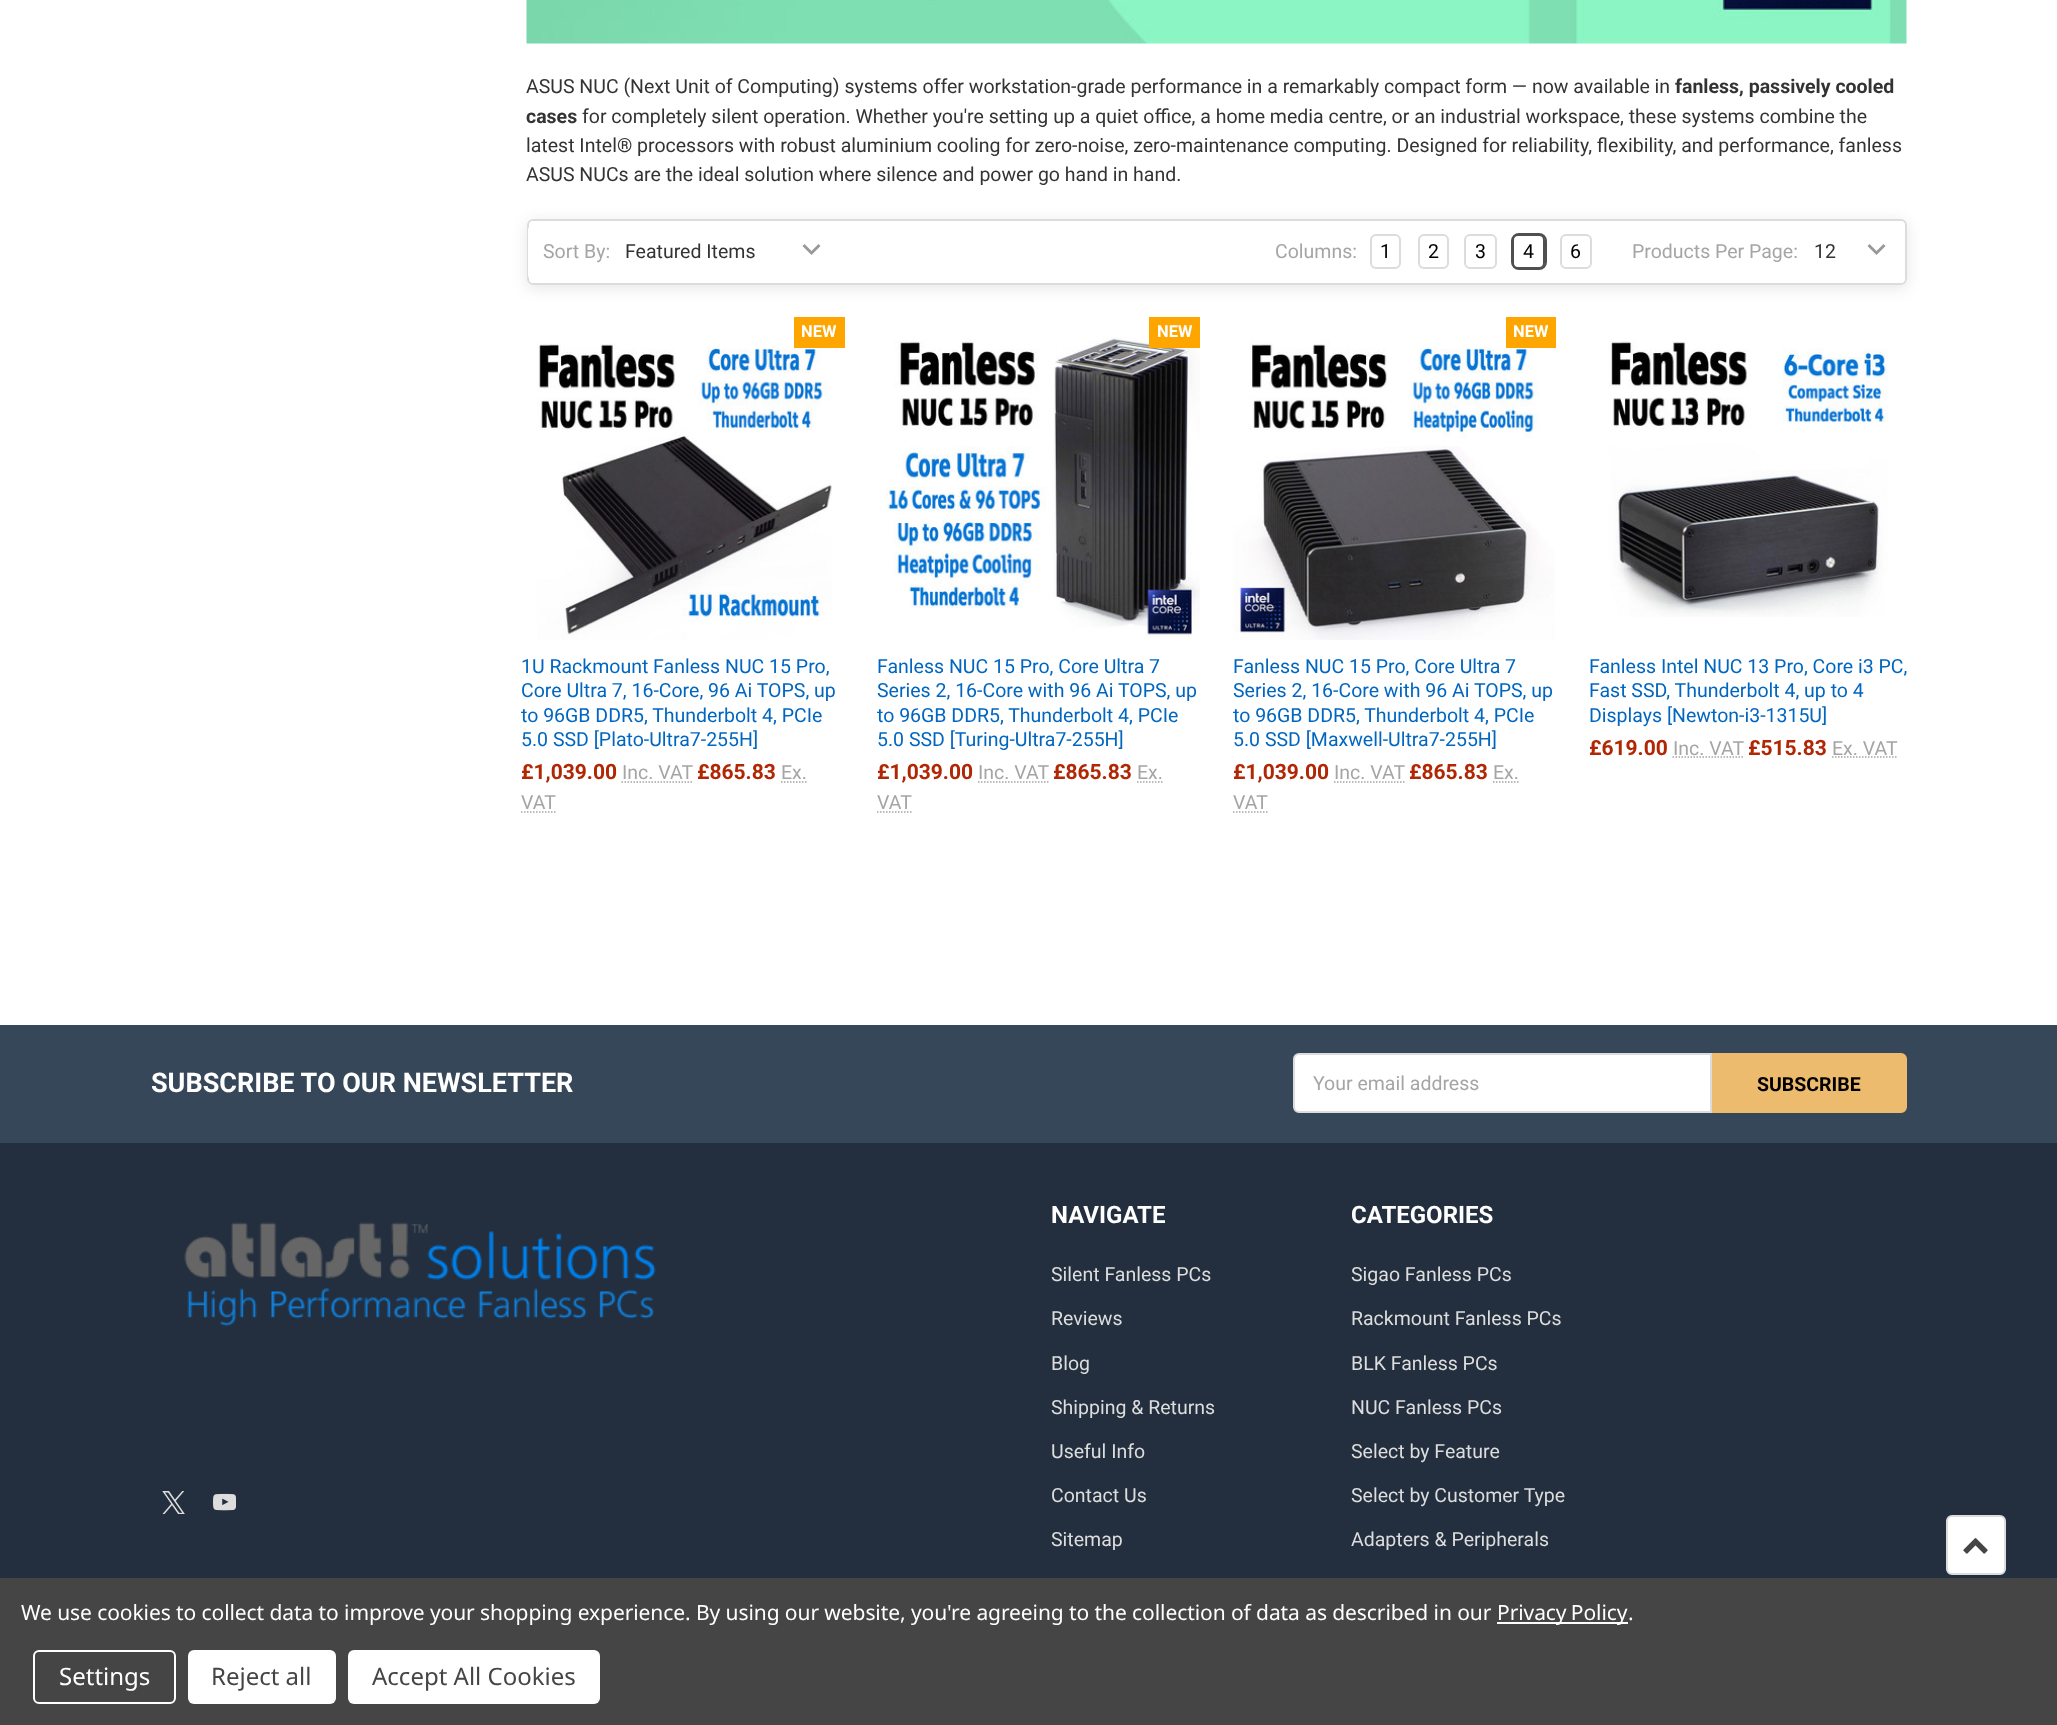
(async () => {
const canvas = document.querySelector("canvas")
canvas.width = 2057
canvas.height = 1725
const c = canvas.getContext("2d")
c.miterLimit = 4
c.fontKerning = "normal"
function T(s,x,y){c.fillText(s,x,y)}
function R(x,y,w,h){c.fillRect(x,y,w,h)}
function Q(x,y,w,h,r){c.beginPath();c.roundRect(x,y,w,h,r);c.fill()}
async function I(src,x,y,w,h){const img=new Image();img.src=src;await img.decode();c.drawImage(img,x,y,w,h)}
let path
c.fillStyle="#fff"
R(0,0,2057,1725)
await I("1.png",526,0,1381,44)
c.font="19.5px Roboto"
c.fillStyle="#333"
T("ASUS NUC (Next Unit of Computing) systems offer workstation-grade performance in a remarkably compact form — now available in",526,93)
c.font="bold 19.5px Roboto"
T("fanless, passively cooled",1675,93)
T("cases",526,123)
c.font="19.5px Roboto"
T("for completely silent operation. Whether you're setting up a quiet office, a home media centre, or an industrial workspace, these systems combine the",582,123)
T("latest Intel® processors with robust aluminium cooling for zero-noise, zero-maintenance computing. Designed for reliability, flexibility, and performance, fanless",526,152)
T("ASUS NUCs are the ideal solution where silence and power go hand in hand.",526,181)
c.save()
path = new Path2D("M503 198h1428v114h-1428zm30 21h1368c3.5 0 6 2.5 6 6v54c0 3.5-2.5 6-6 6h-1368c-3.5 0-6-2.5-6-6v-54c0-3.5 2.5-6 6-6z")
c.clip(path,"evenodd")
c.fillStyle="#0000001a"
c.filter="blur(7.5px)"
c.beginPath()
c.roundRect(527,222,1380,66,6)
c.fill()
c.filter="none"
c.restore()
c.beginPath()
c.roundRect(528,220,1378,64,5)
c.strokeStyle="#dcdcdc"
c.lineWidth=2
c.stroke()
c.fillStyle="#fff"
Q(528,224,312,57,6)
c.fillStyle="#a5a5a5"
T("Sort By:",543,258)
c.fillStyle="#999"
path = new Path2D("M818.5 244l-7 7l-7-7l-2 2l9 9l9-9z")
c.fill(path)
c.fillStyle="#333"
T("Featured Items",625,258)
c.fillStyle="#a5a5a5"
T("Columns:",1275,258)
c.beginPath()
c.roundRect(1371,235,29,33,5)
c.stroke()
c.fillStyle="#000"
T("1",1380,258)
c.beginPath()
c.roundRect(1419,235,29,33,5)
c.stroke()
T("2",1428,258)
c.beginPath()
c.roundRect(1465,235,31,33,5)
c.stroke()
T("3",1475,258)
c.beginPath()
c.roundRect(1512,234,34,35,7)
c.strokeStyle="#4f4f4f"
c.stroke()
c.beginPath()
c.roundRect(1513,235,31,33,5)
c.stroke()
T("4",1523,258)
c.beginPath()
c.roundRect(1561,235,30,33,5)
c.strokeStyle="#dcdcdc"
c.stroke()
T("6",1570,258)
c.fillStyle="#a5a5a5"
T("Products Per Page:",1632,258)
c.fillStyle="#999"
path = new Path2D("M1883.5 244l-7 7l-7-7l-2 2l9 9l9-9z")
c.fill(path)
c.fillStyle="#333"
T("12",1814,258)
await I("2.png",537,343,295,297)
c.fillStyle="#ffa500"
R(794,317,51,31)
c.font="bold 16.5px Roboto"
c.fillStyle="#fff"
T("NEW",801,337)
c.font="19.5px Roboto"
c.fillStyle="#0066c0"
T("1U Rackmount Fanless NUC 15 Pro,",521,673)
T("Core Ultra 7, 16-Core, 96 Ai TOPS, up",521,697)
T("to 96GB DDR5, Thunderbolt 4, PCIe",521,722)
T("5.0 SSD [Plato-Ultra7-255H]",521,746)
c.font="bold 21px Roboto"
c.fillStyle="#b12704"
T("£1,039.00",521,779)
c.font="19.5px Roboto"
c.fillStyle="#a5a5a5"
T("Inc. VAT",622,779)
path = new Path2D("M621.5 782h71")
c.strokeStyle="#a5a5a5"
c.lineWidth=1.5
c.setLineDash([1.5,1.5])
c.stroke(path)
c.font="bold 21px Roboto"
c.fillStyle="#b12704"
T("£865.83",697,779)
c.font="19.5px Roboto"
c.fillStyle="#a5a5a5"
T("Ex.",781,779)
path = new Path2D("M781 782h26")
c.stroke(path)
T("VAT",521,809)
path = new Path2D("M521 812h34.5")
c.stroke(path)
await I("3.png",885,337,315,302)
c.fillStyle="#ffa500"
R(1149,317,51,31)
c.font="bold 16.5px Roboto"
c.fillStyle="#fff"
T("NEW",1157,337)
c.font="19.5px Roboto"
c.fillStyle="#0066c0"
T("Fanless NUC 15 Pro, Core Ultra 7",877,673)
T("Series 2, 16-Core with 96 Ai TOPS, up",877,697)
T("to 96GB DDR5, Thunderbolt 4, PCIe",877,722)
T("5.0 SSD [Turing-Ultra7-255H]",877,746)
c.font="bold 21px Roboto"
c.fillStyle="#b12704"
T("£1,039.00",877,779)
c.font="19.5px Roboto"
c.fillStyle="#a5a5a5"
T("Inc. VAT",978,779)
path = new Path2D("M978 782h70.5")
c.stroke(path)
c.font="bold 21px Roboto"
c.fillStyle="#b12704"
T("£865.83",1053,779)
c.font="19.5px Roboto"
c.fillStyle="#a5a5a5"
T("Ex.",1137,779)
path = new Path2D("M1137 782h26")
c.stroke(path)
T("VAT",877,809)
path = new Path2D("M877 812h34.5")
c.stroke(path)
await I("4.png",1233,341,322,299)
c.fillStyle="#ffa500"
R(1506,317,50,31)
c.font="bold 16.5px Roboto"
c.fillStyle="#fff"
T("NEW",1513,337)
c.font="19.5px Roboto"
c.fillStyle="#0066c0"
T("Fanless NUC 15 Pro, Core Ultra 7",1233,673)
T("Series 2, 16-Core with 96 Ai TOPS, up",1233,697)
T("to 96GB DDR5, Thunderbolt 4, PCIe",1233,722)
T("5.0 SSD [Maxwell-Ultra7-255H]",1233,746)
c.font="bold 21px Roboto"
c.fillStyle="#b12704"
T("£1,039.00",1233,779)
c.font="19.5px Roboto"
c.fillStyle="#a5a5a5"
T("Inc. VAT",1334,779)
path = new Path2D("M1334 782h70.5")
c.stroke(path)
c.font="bold 21px Roboto"
c.fillStyle="#b12704"
T("£865.83",1409,779)
c.font="19.5px Roboto"
c.fillStyle="#a5a5a5"
T("Ex.",1493,779)
path = new Path2D("M1493 782h26")
c.stroke(path)
T("VAT",1233,809)
path = new Path2D("M1233 812h35")
c.stroke(path)
await I("5.png",1608,341,281,276)
c.fillStyle="#0066c0"
T("Fanless Intel NUC 13 Pro, Core i3 PC,",1589,673)
T("Fast SSD, Thunderbolt 4, up to 4",1589,697)
T("Displays [Newton-i3-1315U]",1589,722)
c.font="bold 21px Roboto"
c.fillStyle="#b12704"
T("£619.00",1589,755)
c.font="19.5px Roboto"
c.fillStyle="#a5a5a5"
T("Inc. VAT",1673,755)
path = new Path2D("M1672.5 757h71")
c.stroke(path)
c.font="bold 21px Roboto"
c.fillStyle="#b12704"
T("£515.83",1748,755)
c.font="19.5px Roboto"
c.fillStyle="#a5a5a5"
T("Ex. VAT",1832,755)
path = new Path2D("M1832 757h65.5")
c.stroke(path)
c.fillStyle="#232f3e"
R(0,1143,2057,435)
c.fillStyle="#37475a"
R(0,1025,2057,118)
c.font="bold 27px Roboto"
c.fillStyle="#fff"
T("SUBSCRIBE TO OUR NEWSLETTER",151,1092)
c.beginPath()
c.roundRect(1294,1054,417,58,[5,0,0,5])
c.fill()
c.strokeStyle="#dcdcdc"
c.lineWidth=2
c.setLineDash([])
c.stroke()
c.font="19.5px Roboto"
c.fillStyle="#a5a5a5"
T("Your email address",1313,1090)
c.fillStyle="#edbb6e"
c.beginPath()
c.roundRect(1713,1054,193,58,[0,5,5,0])
c.fill()
c.strokeStyle="#edbb6e"
c.stroke()
c.font="bold 19.5px Roboto"
c.fillStyle="#000"
T("SUBSCRIBE",1757,1091)
await I("6.png",184,1222,472,105)
await I("7.png",162,1491,23,23)
await I("8.png",213,1493,23,18)
c.font="bold 24px Roboto"
c.fillStyle="#fff"
T("NAVIGATE",1051,1223)
c.font="19.5px Roboto"
c.fillStyle="#ddd"
T("Silent Fanless PCs",1051,1281)
T("Reviews",1051,1325)
T("Blog",1051,1370)
T("Shipping & Returns",1051,1414)
T("Useful Info",1051,1458)
T("Contact Us",1051,1502)
T("Sitemap",1051,1546)
c.font="bold 24px Roboto"
c.fillStyle="#fff"
T("CATEGORIES",1351,1223)
c.font="19.5px Roboto"
c.fillStyle="#ddd"
T("Sigao Fanless PCs",1351,1281)
T("Rackmount Fanless PCs",1351,1325)
T("BLK Fanless PCs",1351,1370)
T("NUC Fanless PCs",1351,1414)
T("Select by Feature",1351,1458)
T("Select by Customer Type",1351,1502)
T("Adapters & Peripherals",1351,1546)
c.fillStyle="#fff"
c.beginPath()
c.roundRect(1947,1516,58,58,5)
c.fill()
c.strokeStyle="#dcdcdc"
c.stroke()
await I("9.png",1963,1538,25,16)
c.fillStyle="#454545"
R(0,1578,2057,147)
c.letterSpacing="-0.08px"
c.font="21px Noto Sans"
c.fillStyle="#fff"
T("We use cookies to collect data to improve your shopping experience. By using our website, you're agreeing to the collection of data as described in our",21,1620)
R(1497,1622,131,2)
c.wordSpacing="-1px"
T("Privacy Policy",1497,1620)
c.wordSpacing="0px"
T(".",1628,1620)
c.beginPath()
c.roundRect(34,1651,141,52,5)
c.strokeStyle="#fff"
c.stroke()
c.letterSpacing="0px"
c.font="24px Noto Sans"
T("Settings",59,1685)
Q(188,1650,148,54,6)
c.fillStyle="#454545"
T("Reject all",211,1685)
c.fillStyle="#fff"
Q(348,1650,252,54,6)
c.fillStyle="#454545"
T("Accept All Cookies",372,1685)
})()
